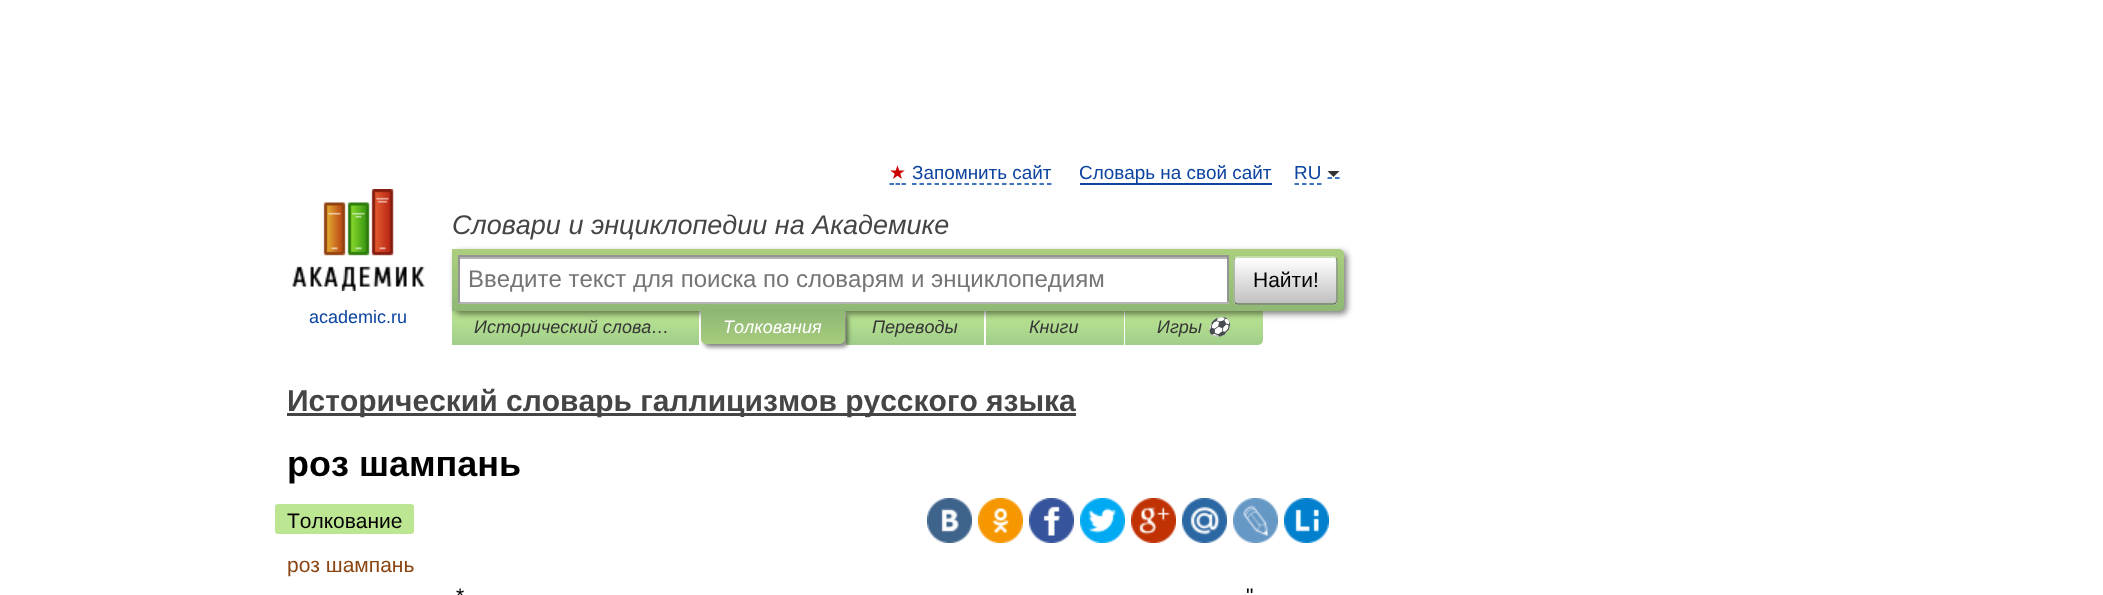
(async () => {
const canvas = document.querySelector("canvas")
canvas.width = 2103
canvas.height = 595
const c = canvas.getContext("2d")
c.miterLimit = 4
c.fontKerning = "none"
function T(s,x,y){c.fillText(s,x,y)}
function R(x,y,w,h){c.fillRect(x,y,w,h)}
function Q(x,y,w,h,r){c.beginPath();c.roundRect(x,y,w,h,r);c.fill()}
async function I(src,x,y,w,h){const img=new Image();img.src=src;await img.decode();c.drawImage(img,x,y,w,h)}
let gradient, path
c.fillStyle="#fff"
R(0,0,2103,595)
c.font="18.9px DejaVu Sans"
c.fillStyle="#c00"
T("★",889,179)
path = new Path2D("M889.5 184h4.5m1.5 0h4.5m1.5 0h4.5")
c.strokeStyle="#04a"
c.lineWidth=1.5
c.stroke(path)
c.font="18.9px Liberation Sans"
c.fillStyle="#0d44a0"
T("Запомнить сайт",912,179)
path = new Path2D("M912 184h139.5")
c.setLineDash([4.5,3])
c.stroke(path)
T("Словарь на свой сайт",1079,179)
R(1080,183,192,2)
path = new Path2D("M1294.5 184h27")
c.stroke(path)
path = new Path2D("M1327.5 178h4.5m3 0h4.5")
c.setLineDash([])
c.stroke(path)
T("RU",1294,179)
c.fillStyle="#333"
path = new Path2D("M1327.5 171h12l-6 6z")
c.fill(path)
c.font="italic 27px Liberation Sans"
c.fillStyle="#454545"
T("Словари и энциклопедии на Академике",452,234)
gradient = c.createLinearGradient(575,311,575,345)
gradient.addColorStop(0,"#bde693")
gradient.addColorStop(1,"#a0ce8a")
c.fillStyle = gradient
R(452,311,247,34)
gradient = c.createLinearGradient(915,311,915,345)
gradient.addColorStop(0,"#bde693")
gradient.addColorStop(1,"#a0ce8a")
c.fillStyle = gradient
R(846,311,138,34)
gradient = c.createLinearGradient(1055,311,1055,345)
gradient.addColorStop(0,"#bde693")
gradient.addColorStop(1,"#a0ce8a")
c.fillStyle = gradient
R(986,311,138,34)
gradient = c.createLinearGradient(1194,311,1194,345)
gradient.addColorStop(0,"#bde693")
gradient.addColorStop(1,"#a0ce8a")
c.fillStyle = gradient
c.beginPath()
c.roundRect(1125,311,138,34,[0,0,5,0])
c.fill()
c.fillStyle="#00000080"
c.filter="blur(3px)"
c.beginPath()
c.roundRect(455,252,892,62,5)
c.fill()
c.filter="none"
gradient = c.createLinearGradient(898,249,898,311)
gradient.addColorStop(0,"#abcf7e")
gradient.addColorStop(1,"#8eb874")
c.fillStyle = gradient
c.beginPath()
c.roundRect(452,249,892,62,[0,5,5,0])
c.fill()
c.fillStyle="#fff"
R(460,259,767,43)
c.fillStyle="#b3b3b3"
R(459,257,768,2)
c.fillStyle="#949494"
R(458,255,771,2)
R(1227,255,2,48)
c.fillStyle="#b4b4b4"
R(458,302,771,2)
c.fillStyle="#949494"
R(458,255,2,48)
c.font="24px Liberation Sans"
c.fillStyle="#757575"
T("Введите текст для поиска по словарям и энциклопедиям",468,287)
c.save()
c.beginPath()
c.roundRect(1233,257,105,48,5)
c.clip()
gradient = c.createLinearGradient(1286,258,1286,303)
gradient.addColorStop(0,"#fff")
gradient.addColorStop(1,"#c1c1c1")
c.fillStyle = gradient
R(1233,258,105,45)
gradient = c.createLinearGradient(1286,303,1286,348)
gradient.addColorStop(0,"#fff")
gradient.addColorStop(1,"#c1c1c1")
c.fillStyle = gradient
R(1233,303,105,2)
c.restore()
path = new Path2D("M1235 258.5c.5-1 1.5-1.5 2.5-1.5h96c1 0 2 .5 2.5 1.5")
c.strokeStyle="#d1e4bc"
c.stroke(path)
path = new Path2D("M1336 258.5c1 .5 1 1.5 1 2.5v39c0 1 0 2-1 2.5")
c.strokeStyle="#7a8e69"
c.stroke(path)
path = new Path2D("M1336 302.5c-.5 1-1.5 1.5-2.5 1.5h-96c-1 0-2-.5-2.5-1.5")
c.strokeStyle="#5d7250"
c.stroke(path)
path = new Path2D("M1235 302.5c-1-.5-1-1.5-1-2.5v-39c0-1 0-2 1-2.5")
c.strokeStyle="#9aae89"
c.stroke(path)
c.font="21px Liberation Sans"
c.fillStyle="#000"
T("Найти!",1253,287)
await I("1.png",292,189,133,102)
c.font="18px Liberation Sans"
c.fillStyle="#0d44a0"
T("academic.ru",309,323)
c.font="italic 18px Liberation Sans"
c.fillStyle="#353535"
T("Исторический слова…",474,333)
c.fillStyle="#00000080"
c.filter="blur(2px)"
c.beginPath()
c.roundRect(704,314,144,33,5)
c.fill()
c.filter="none"
gradient = c.createLinearGradient(773,311,773,344)
gradient.addColorStop(0,"#8fb875")
gradient.addColorStop(1,"#a7cc7d")
c.fillStyle = gradient
c.beginPath()
c.roundRect(701,311,144,33,[0,0,5,5])
c.fill()
c.fillStyle="#fff"
T("Толкования",723,333)
c.fillStyle="#353535"
T("Переводы",872,333)
T("Книги",1029,333)
T("Игры",1157,333)
c.font="italic 18px Noto Color Emoji"
T("⚽",1207,333)
c.fillStyle="#454545"
R(287,413,789,3)
c.font="bold 30px Liberation Sans"
T("Исторический словарь галлицизмов русского языка",287,411)
c.font="bold 36px Liberation Sans"
c.fillStyle="#000"
T("роз шампань",287,476)
c.fillStyle="#bde693"
Q(275,504,139,30,3)
c.font="21px Liberation Sans"
c.fillStyle="#000"
T("Толкование",287,528)
await I("2.png",927,498,45,45)
await I("3.png",978,498,45,45)
await I("4.png",1029,498,45,45)
await I("5.png",1080,498,45,45)
await I("6.png",1131,498,45,45)
await I("7.png",1182,498,45,45)
await I("8.png",1233,498,45,45)
await I("9.png",1284,498,45,45)
c.fillStyle="#8b4513"
T("роз шампань",287,572)
c.fillStyle="#000"
T("*",456,603)
T("\"",1246,603)
})()
